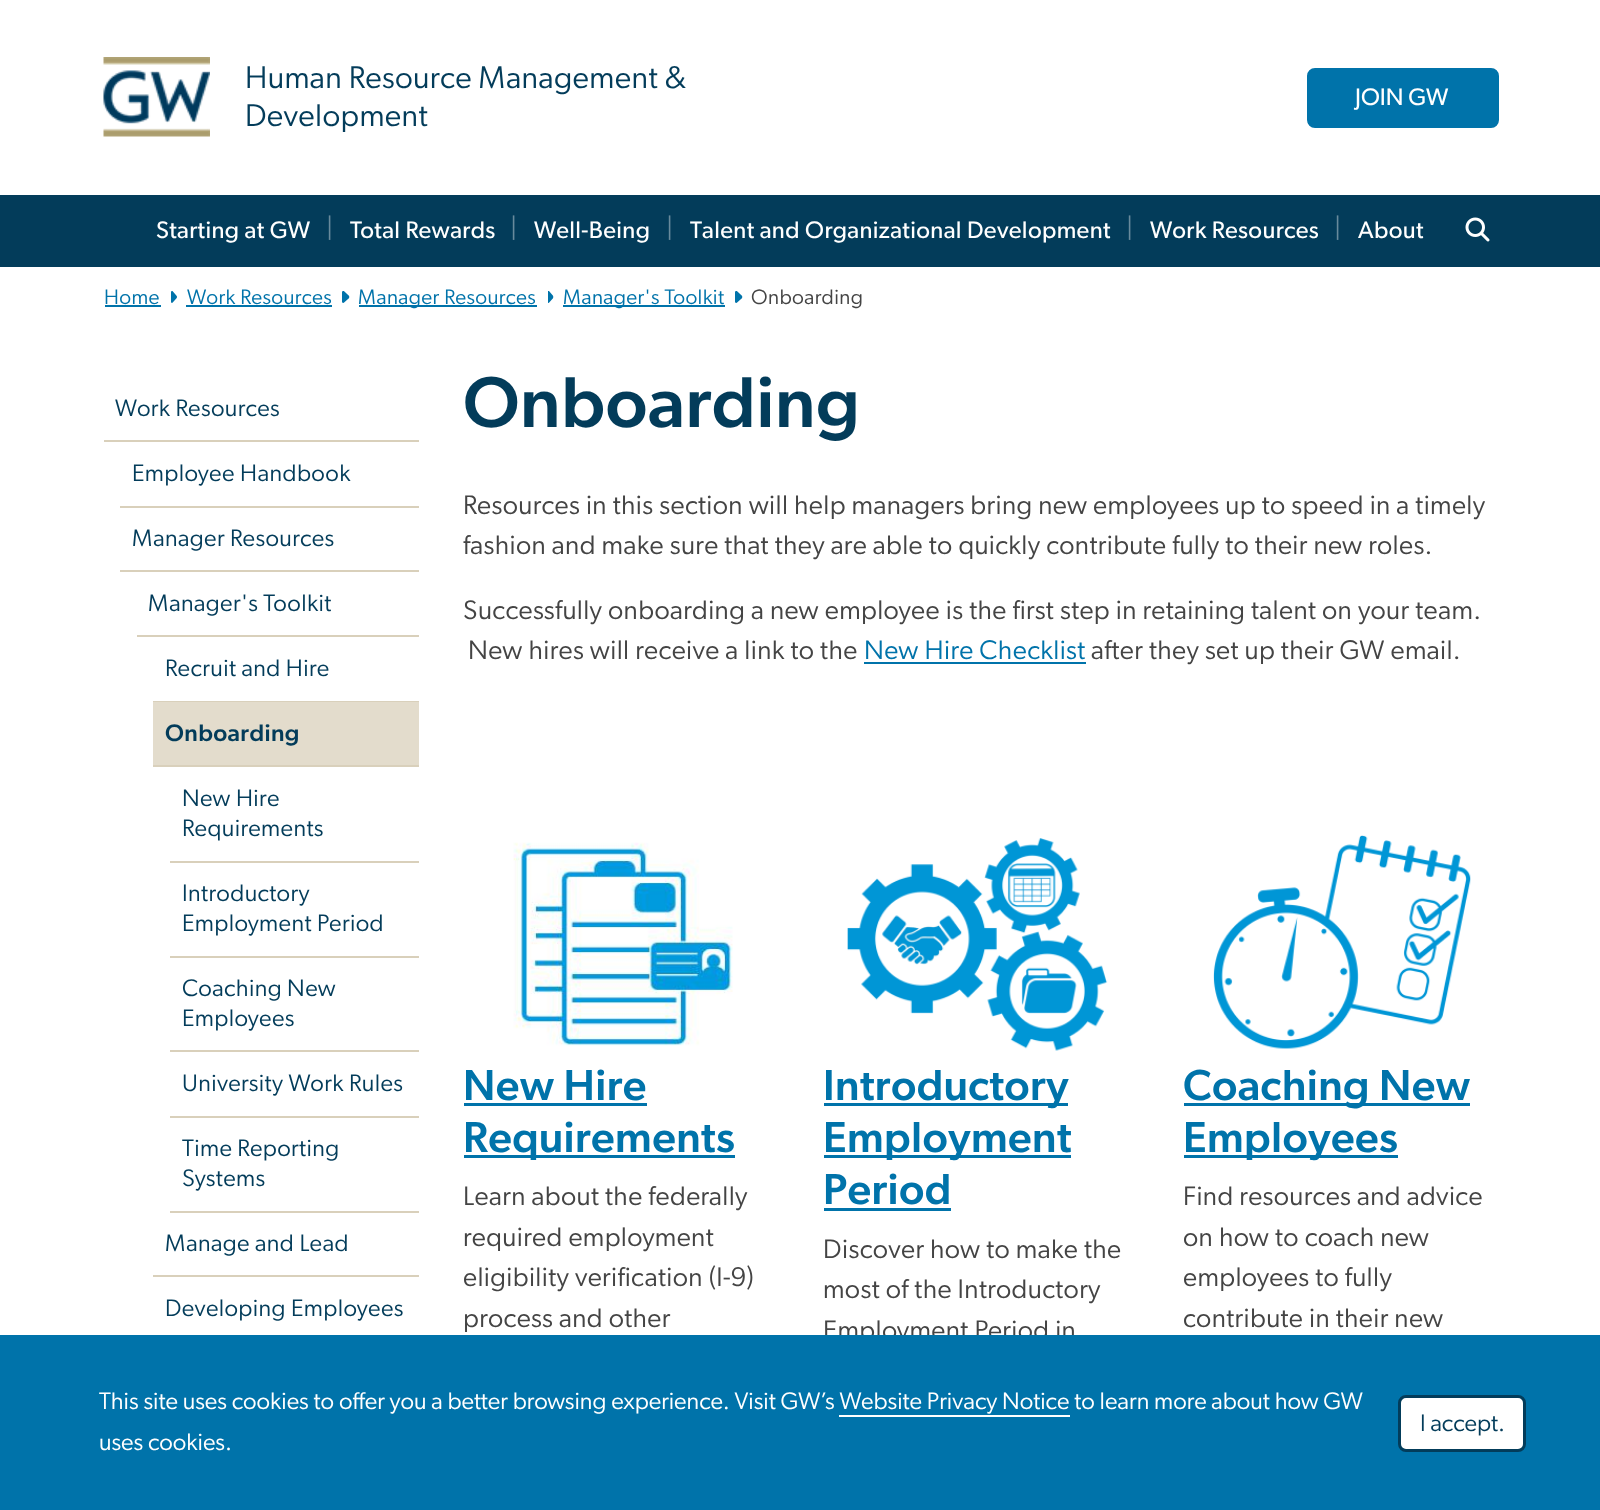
(async () => {
const canvas = document.querySelector("canvas")
canvas.width = 1600
canvas.height = 1510
const c = canvas.getContext("2d")
c.miterLimit = 4
c.fontKerning = "normal"
function T(s,x,y){c.fillText(s,x,y)}
function R(x,y,w,h){c.fillRect(x,y,w,h)}
async function I(src,x,y,w,h){const img=new Image();img.src=src;await img.decode();c.drawImage(img,x,y,w,h)}
c.fillStyle="#fff"
R(0,0,1600,1510)
await I("1.png",103,57,107,80)
c.letterSpacing="0.37px"
c.font="31.5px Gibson"
c.fillStyle="#033c5a"
T("Human Resource Management &",245,88)
T("Development",245,126)
c.fillStyle="#0073aa"
c.beginPath()
c.roundRect(1308.5,69.5,189,57,6.5)
c.fill()
c.strokeStyle="#0073aa"
c.lineWidth=3
c.stroke()
c.letterSpacing="0px"
c.font="24px 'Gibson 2'"
c.fillStyle="#fff"
T("JOIN GW",1355,105)
c.fillStyle="#033c5a"
R(0,195,1600,72)
c.letterSpacing="0.37px"
c.fillStyle="#fff"
T("Starting at GW",156,238)
c.font="27px Gibson"
c.fillStyle="#688a9c"
T("|",326,237)
c.font="24px 'Gibson 2'"
c.fillStyle="#fff"
T("Total Rewards",350,238)
c.font="27px Gibson"
c.fillStyle="#688a9c"
T("|",510,237)
c.font="24px 'Gibson 2'"
c.fillStyle="#fff"
T("Well-Being",534,238)
c.font="27px Gibson"
c.fillStyle="#688a9c"
T("|",666,237)
c.font="24px 'Gibson 2'"
c.fillStyle="#fff"
T("Talent and Organizational Development",690,238)
c.font="27px Gibson"
c.fillStyle="#688a9c"
T("|",1126,237)
c.font="24px 'Gibson 2'"
c.fillStyle="#fff"
T("Work Resources",1150,238)
c.font="27px Gibson"
c.fillStyle="#688a9c"
T("|",1334,237)
c.font="24px 'Gibson 2'"
c.fillStyle="#fff"
T("About",1358,238)
await I("2.png",1465,217,25,25)
c.font="21px Gibson"
c.fillStyle="#0073aa"
T("Home",104,304)
R(105,305,56,2)
await I("3.png",171,291,6,12)
T("Work Resources",187,304)
R(186,305,146,2)
await I("4.png",342,291,8,12)
R(359,305,178,2)
T("Manager Resources",358,304)
await I("5.png",548,291,6,12)
R(563,305,162,2)
T("Manager's Toolkit",563,304)
await I("4.png",735,291,8,12)
c.fillStyle="#444"
T("Onboarding",751,304)
c.fillStyle="#d9d0bb"
R(104,440,315,2)
c.font="24px Gibson"
c.fillStyle="#033c5a"
T("Work Resources",115,416)
c.fillStyle="#d9d0bb"
R(120,506,299,2)
c.fillStyle="#033c5a"
T("Employee Handbook",132,481)
c.fillStyle="#d9d0bb"
R(120,570,299,2)
c.fillStyle="#033c5a"
T("Manager Resources",132,546)
c.fillStyle="#d9d0bb"
R(137,635,282,2)
c.fillStyle="#033c5a"
T("Manager's Toolkit",148,611)
c.fillStyle="#d9d0bb"
R(153,701,266,1)
c.fillStyle="#033c5a"
T("Recruit and Hire",165,676)
c.fillStyle="#e3dccc"
R(153,702,266,63)
c.fillStyle="#d9d0bb"
R(153,765,266,2)
c.font="500 24px Gibson"
c.fillStyle="#033c5a"
T("Onboarding",165,741)
c.fillStyle="#d9d0bb"
R(170,861,249,2)
c.font="24px Gibson"
c.fillStyle="#033c5a"
T("New Hire",182,806)
T("Requirements",182,836)
c.fillStyle="#d9d0bb"
R(170,956,249,2)
c.fillStyle="#033c5a"
T("Introductory",182,901)
T("Employment Period",182,931)
c.fillStyle="#d9d0bb"
R(170,1050,249,2)
c.fillStyle="#033c5a"
T("Coaching New",182,996)
T("Employees",182,1026)
c.fillStyle="#d9d0bb"
R(170,1116,249,2)
c.fillStyle="#033c5a"
T("University Work Rules",182,1091)
c.fillStyle="#d9d0bb"
R(170,1211,249,2)
c.fillStyle="#033c5a"
T("Time Reporting",182,1156)
T("Systems",182,1186)
c.fillStyle="#d9d0bb"
R(153,1275,266,2)
c.fillStyle="#033c5a"
T("Manage and Lead",165,1251)
T("Developing Employees",165,1316)
c.font="500 72px Gibson"
T("Onboarding",463,427)
c.font="27px Gibson"
c.fillStyle="#444"
T("Resources in this section will help managers bring new employees up to speed in a timely",463,514)
T("fashion and make sure that they are able to quickly contribute fully to their new roles.",463,554)
T("Successfully onboarding a new employee is the first step in retaining talent on your team.",463,619)
T("New hires will receive a link to the",468,659)
c.fillStyle="#0073aa"
T("New Hire Checklist",864,659)
R(864,662,222,2)
c.fillStyle="#444"
T("after they set up their GW email.",1091,659)
await I("6.png",513,842,220,204)
c.font="500 43.5px Gibson"
c.fillStyle="#0073aa"
T("New Hire",463,1100)
R(464,1103,183,3)
R(464,1155,271,3)
T("Requirements",463,1152)
c.font="27px Gibson"
c.fillStyle="#444"
T("Learn about the federally",463,1205)
T("required employment",463,1246)
T("eligibility verification (I-9)",463,1286)
T("process and other",463,1327)
await I("7.png",847,838,261,213)
c.fillStyle="#0073aa"
R(824,1103,244,3)
c.font="500 43.5px Gibson"
T("Introductory",823,1100)
R(824,1155,247,3)
T("Employment",823,1152)
T("Period",823,1204)
R(824,1208,127,3)
c.font="27px Gibson"
c.fillStyle="#444"
T("Discover how to make the",823,1258)
T("most of the Introductory",823,1298)
T("Employment Period in",823,1339)
await I("8.png",1213,835,258,214)
c.fillStyle="#0073aa"
R(1184,1103,286,3)
c.font="500 43.5px Gibson"
T("Coaching New",1183,1100)
R(1184,1155,214,3)
T("Employees",1183,1152)
c.font="27px Gibson"
c.fillStyle="#444"
T("Find resources and advice",1183,1205)
T("on how to coach new",1183,1246)
T("employees to fully",1183,1286)
T("contribute in their new",1183,1327)
c.fillStyle="#0073aa"
R(0,1335,1600,175)
c.letterSpacing="0px"
c.font="24px Gibson"
c.fillStyle="#fff"
T("This site uses cookies to offer you a better browsing experience. Visit GW’s Website Privacy Notice to learn more about how GW",99,1409)
R(839,1415,231,2)
T("uses cookies.",99,1450)
c.beginPath()
c.roundRect(1399.5,1396.5,125,54,6.5)
c.fill()
c.strokeStyle="#033c5a"
c.stroke()
c.fillStyle="#033c5a"
T("I accept.",1420,1431)
})()
